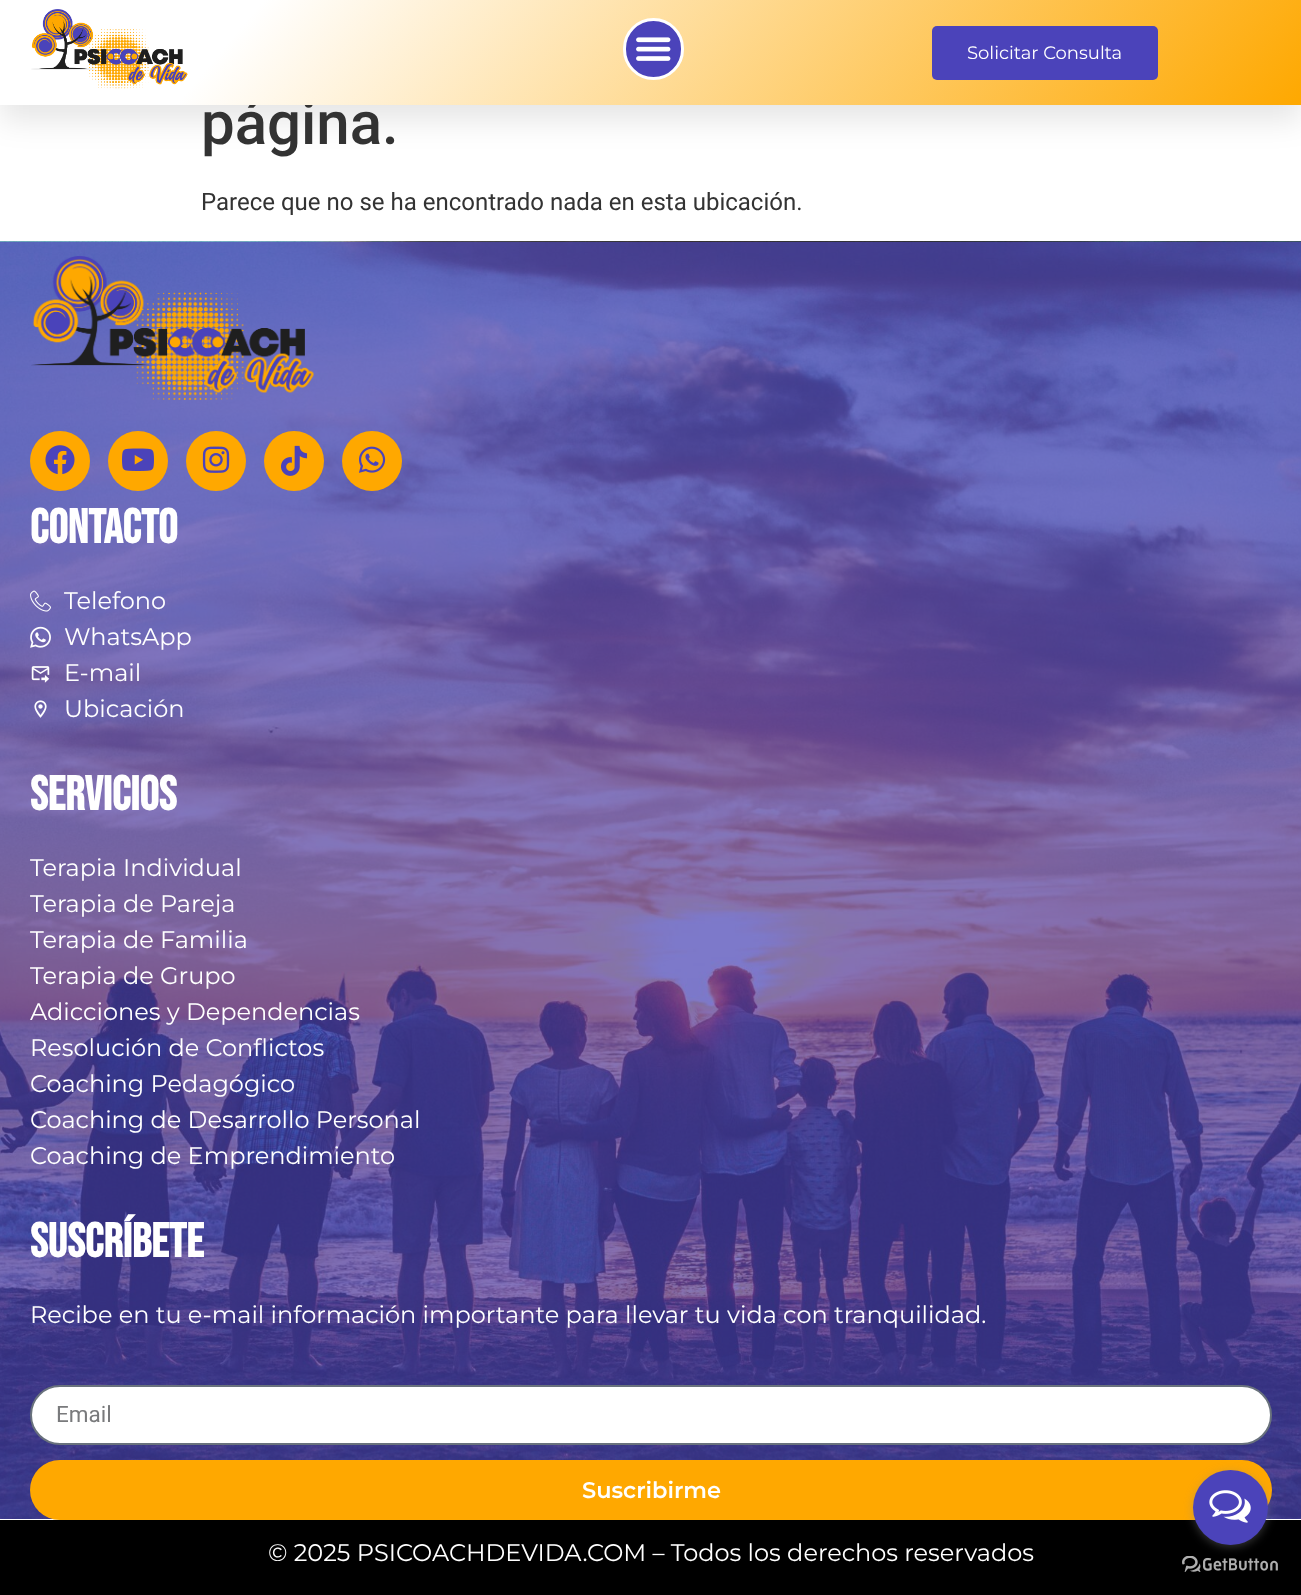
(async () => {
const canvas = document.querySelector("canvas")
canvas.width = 1301
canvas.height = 1595
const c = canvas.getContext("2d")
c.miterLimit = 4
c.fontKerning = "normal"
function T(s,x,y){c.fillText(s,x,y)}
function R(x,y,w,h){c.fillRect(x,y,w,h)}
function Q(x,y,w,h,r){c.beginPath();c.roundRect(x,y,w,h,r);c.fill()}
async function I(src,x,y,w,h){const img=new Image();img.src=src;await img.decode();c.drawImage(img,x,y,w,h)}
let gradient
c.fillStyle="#fff"
R(0,0,1301,1595)
c.fillStyle="#0000001a"
c.filter="blur(15px)"
c.beginPath()
c.rect(0,15,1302,105)
c.fill()
c.filter="none"
c.font="500 60px Roboto"
c.fillStyle="#333"
T("página.",201,144)
gradient = c.createLinearGradient(243,-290,1059,395)
gradient.addColorStop(.19,"#fff")
gradient.addColorStop(1,"#fea800")
c.fillStyle = gradient
R(0,0,1301,105)
await I("1.png",31,9,157,80)
c.fillStyle="#4b43ba"
c.beginPath()
c.roundRect(624.5,19.5,58,59,29)
c.fill()
c.strokeStyle="#fff"
c.lineWidth=3
c.stroke()
await I("2.png",636,37,35,24)
Q(932,26,226,54,5)
c.font="18px Montserrat"
c.fillStyle="#fff"
T("Solicitar Consulta",967,59)
c.font="24px Roboto"
c.fillStyle="#333"
T("Parece que no se ha encontrado nada en esta ubicación.",201,210)
await I("3.png",0,241,1301,1278)
await I("4.png",31,256,283,144)
c.fillStyle="#ffa800"
c.beginPath()
c.arc(60,461,30,0,7)
c.fill()
await I("5.png",45,445,30,30)
c.beginPath()
c.arc(138,461,30,0,7)
c.fill()
await I("6.png",122,448,32,23)
c.beginPath()
c.arc(216,461,30,0,7)
c.fill()
await I("7.png",202,446,28,27)
c.beginPath()
c.arc(294,461,30,0,7)
c.fill()
await I("8.png",281,445,27,31)
c.beginPath()
c.arc(372,461,30,0,7)
c.fill()
await I("9.png",358,446,28,27)
c.font="bold 48px Bebas Neue"
c.fillStyle="#fff"
T("Contacto",30,543)
await I("10.png",30,590,21,22)
c.font="24px Montserrat"
T("Telefono",64,609)
await I("11.png",30,626,21,22)
T("WhatsApp",64,645)
await I("12.png",31,666,19,17)
T("E-mail",64,681)
await I("13.png",34,700,13,18)
T("Ubicación",64,717)
c.font="bold 48px Bebas Neue"
T("Servicios",30,810)
c.font="24px Montserrat"
T("Terapia Individual",30,876)
T("Terapia de Pareja",30,912)
T("Terapia de Familia",30,948)
T("Terapia de Grupo",30,984)
T("Adicciones y Dependencias",30,1020)
T("Resolución de Conflictos",30,1056)
T("Coaching Pedagógico",30,1092)
T("Coaching de Desarrollo Personal",30,1128)
T("Coaching de Emprendimiento",30,1164)
c.font="bold 48px Bebas Neue"
T("Suscríbete",30,1257)
c.font="24px Montserrat"
T("Recibe en tu e-mail información importante para llevar tu vida con tranquilidad.",30,1323)
c.beginPath()
c.roundRect(31,1386,1240,58,29)
c.fill()
c.strokeStyle="#69727d"
c.lineWidth=2
c.stroke()
c.font="22.5px Roboto"
c.fillStyle="#797a7c"
T("Email",56,1422)
c.fillStyle="#ffa800"
Q(30,1460,1242,60,30)
c.font="600 22.5px Montserrat"
c.fillStyle="#fff"
T("Suscribirme",582,1498)
c.fillStyle="#000"
R(0,1520,1301,75)
c.font="24px Montserrat"
c.fillStyle="#fff"
T("© 2025 PSICOACHDEVIDA.COM – Todos los derechos reservados",268,1561)
await I("15.png",1182,1556,96,16)
c.fillStyle="#88888866"
c.filter="blur(5px)"
c.beginPath()
c.roundRect(1193,1472,75,75,37.5)
c.fill()
c.filter="none"
c.fillStyle="#4b43ba"
c.beginPath()
c.arc(1230.5,1507.5,37.5,0,7)
c.fill()
await I("14.png",1209,1490,42,33)
})()
